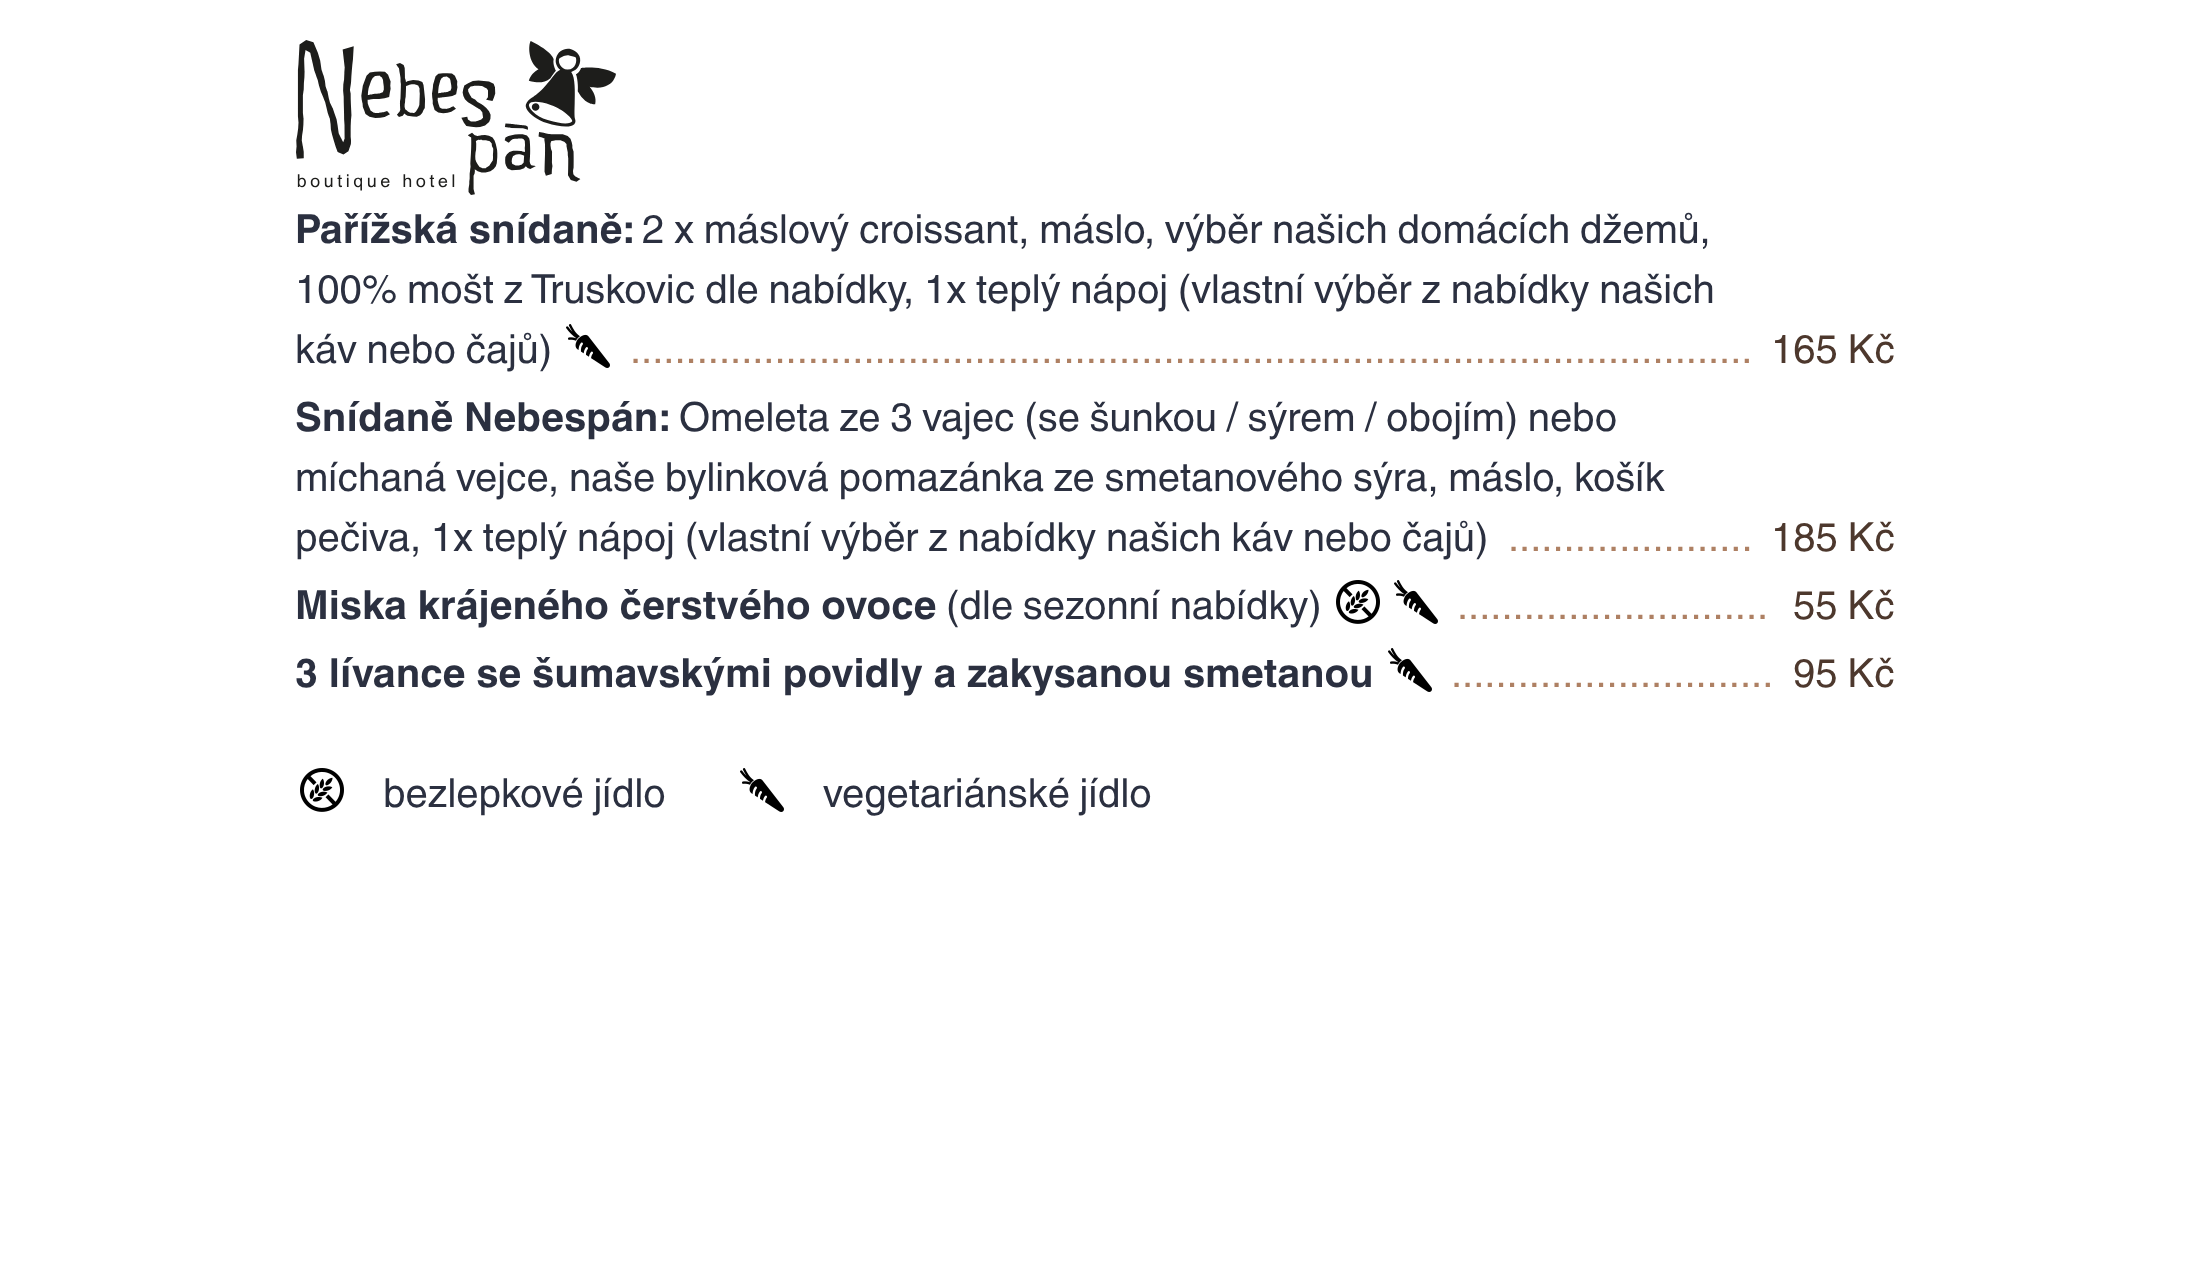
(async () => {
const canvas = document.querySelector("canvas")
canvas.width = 2190
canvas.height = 1283
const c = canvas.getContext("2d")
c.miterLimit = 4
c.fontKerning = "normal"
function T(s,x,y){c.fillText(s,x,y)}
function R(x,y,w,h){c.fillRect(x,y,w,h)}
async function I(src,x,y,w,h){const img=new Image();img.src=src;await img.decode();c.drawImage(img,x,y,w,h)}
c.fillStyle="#fff"
R(0,0,2190,1283)
await I("1.png",296,40,320,155)
c.font="bold 40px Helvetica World"
c.fillStyle="#2b3040"
T("Pařížská snídaně:",295,243)
c.font="40px Helvetica World"
T("2 x máslový croissant, máslo, výběr našich domácích džemů,",642,243)
T("100% mošt z Truskovic dle nabídky, 1x teplý nápoj (vlastní výběr z nabídky našich",295,303)
T("káv nebo čajů)",295,363)
await I("2.png",566,324,44,44)
c.fillStyle="#ae8063"
T(".....................................................................................................",630,363)
c.fillStyle="#4d382d"
T("165 Kč",1771,363)
c.font="bold 40px Helvetica World"
c.fillStyle="#2b3040"
T("Snídaně Nebespán:",295,431)
c.font="40px Helvetica World"
T("Omeleta ze 3 vajec (se šunkou / sýrem / obojím) nebo",679,431)
T("míchaná vejce, naše bylinková pomazánka ze smetanového sýra, máslo, košík",295,491)
T("pečiva, 1x teplý nápoj (vlastní výběr z nabídky našich káv nebo čajů)",295,551)
c.fillStyle="#ae8063"
T("......................",1508,551)
c.fillStyle="#4d382d"
T("185 Kč",1771,551)
c.font="bold 40px Helvetica World"
c.fillStyle="#2b3040"
T("Miska krájeného čerstvého ovoce",295,619)
c.font="40px Helvetica World"
T("(dle sezonní nabídky)",946,619)
await I("3.png",1336,580,44,44)
await I("2.png",1394,580,44,44)
c.fillStyle="#ae8063"
T("............................",1457,619)
c.fillStyle="#4d382d"
T("55 Kč",1793,619)
c.font="bold 40px Helvetica World"
c.fillStyle="#2b3040"
T("3 lívance se šumavskými povidly a zakysanou smetanou",295,687)
await I("2.png",1388,648,44,44)
c.font="40px Helvetica World"
c.fillStyle="#ae8063"
T(".............................",1451,687)
c.fillStyle="#4d382d"
T("95 Kč",1793,687)
await I("3.png",300,768,44,44)
c.fillStyle="#2b3040"
T("bezlepkové jídlo",383,807)
await I("2.png",740,768,44,44)
T("vegetariánské jídlo",823,807)
})()
